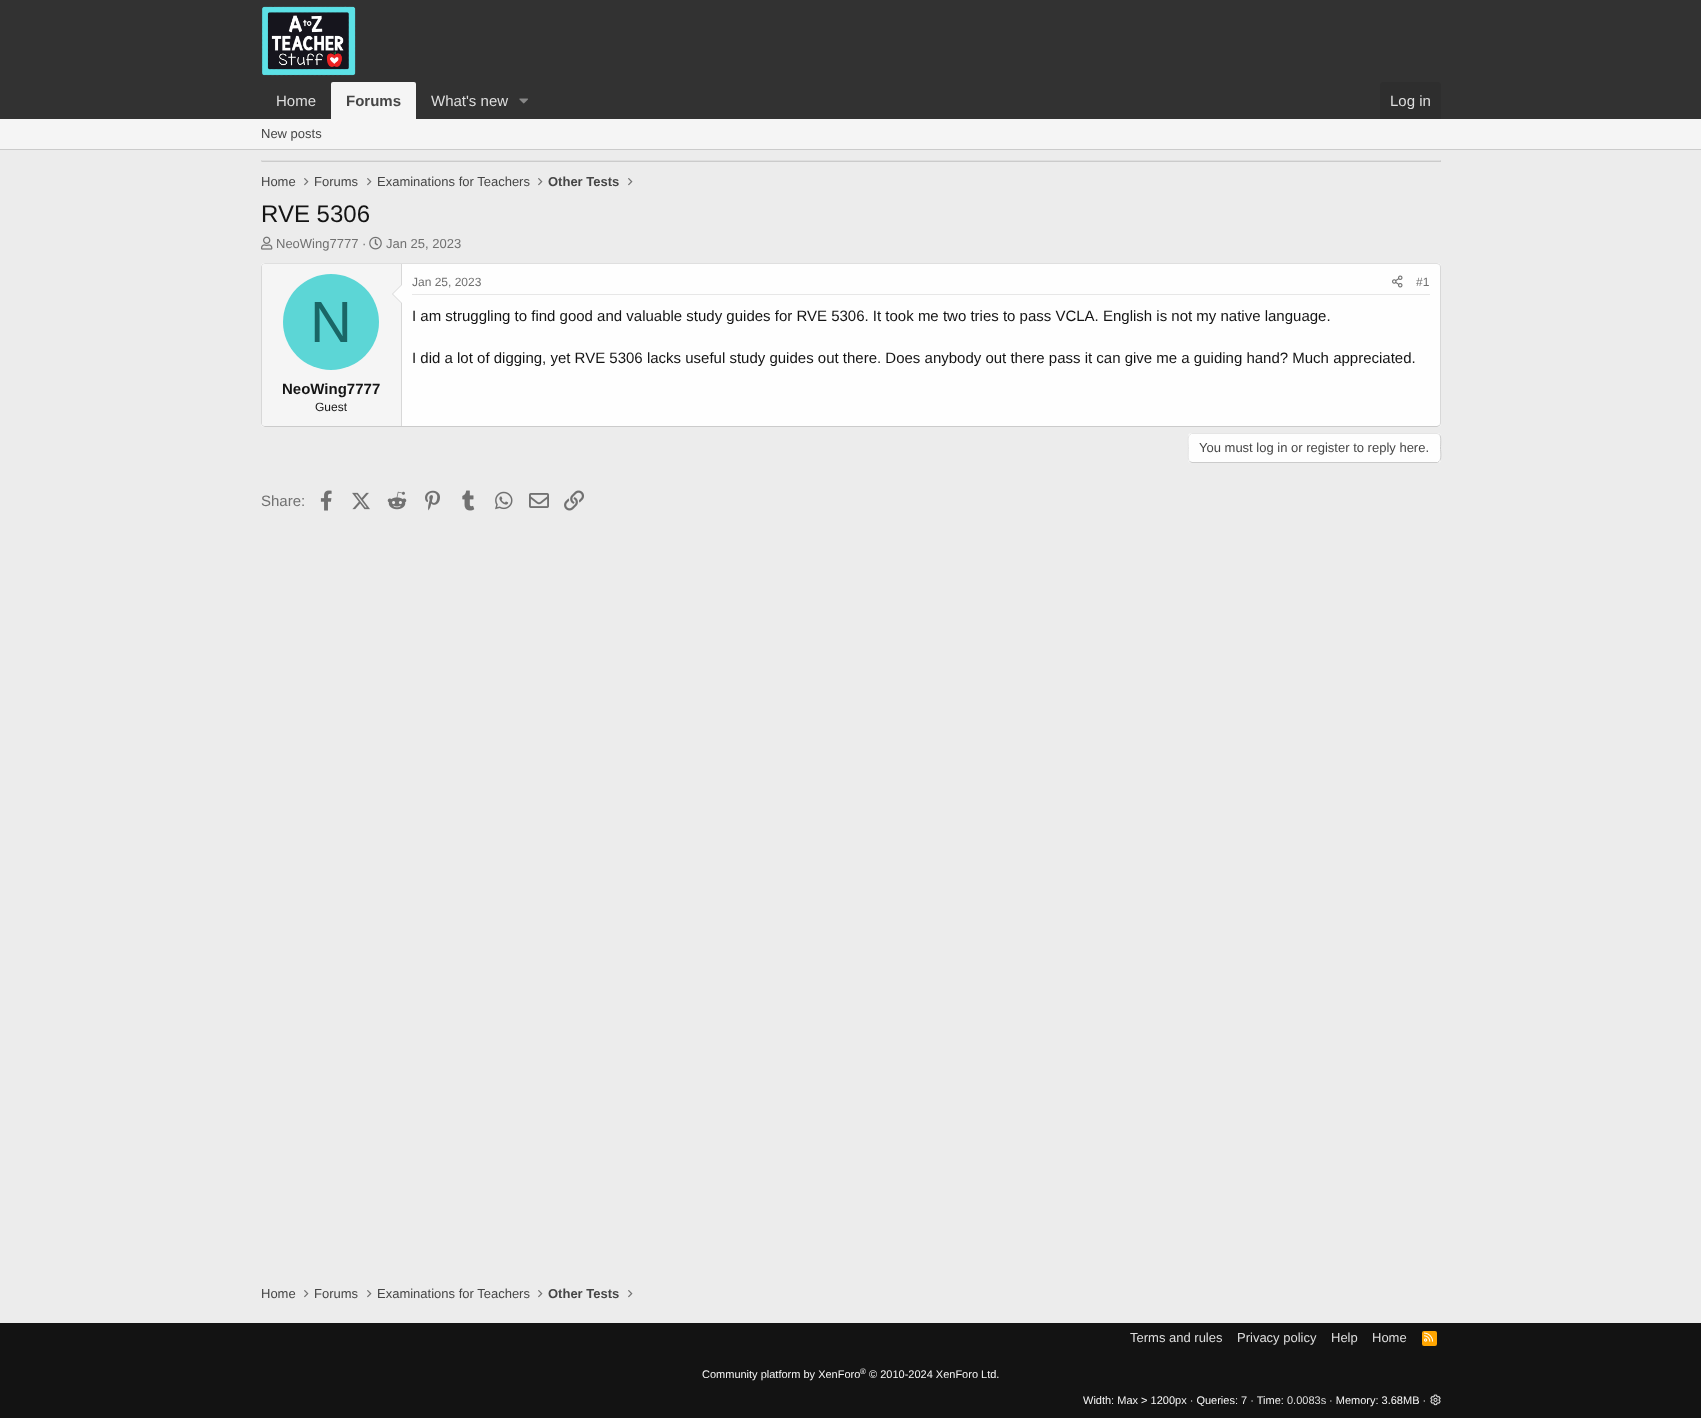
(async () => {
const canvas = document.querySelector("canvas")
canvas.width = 1701
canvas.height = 1418
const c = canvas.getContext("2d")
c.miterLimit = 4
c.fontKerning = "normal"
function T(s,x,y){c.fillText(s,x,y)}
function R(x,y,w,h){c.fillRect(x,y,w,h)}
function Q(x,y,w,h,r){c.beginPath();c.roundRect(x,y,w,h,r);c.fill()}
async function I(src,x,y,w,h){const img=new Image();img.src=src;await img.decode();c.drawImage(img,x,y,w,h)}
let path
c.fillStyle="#ececec"
R(0,0,1701,1418)
c.fillStyle="#323232"
R(0,0,1701,119)
await I("1.png",261,6,95,70)
c.font="15px Liberation Sans"
c.fillStyle="#dedede"
T("Home",276,106)
c.fillStyle="#f5f5f5"
c.beginPath()
c.roundRect(331,82,85,37,[2,2,0,0])
c.fill()
c.font="bold 15px Liberation Sans"
c.fillStyle="#464646"
T("Forums",346,106)
c.font="15px Liberation Sans"
c.fillStyle="#dedede"
T("What's new",431,106)
await I("2.png",519,98,9,6)
c.fillStyle="#2e2e2e"
c.beginPath()
c.roundRect(1380,82,61,37,[4,4,0,0])
c.fill()
c.fillStyle="#dedede"
T("Log in",1390,106)
c.fillStyle="#f5f5f5"
R(0,119,1701,30)
c.fillStyle="#cbcbcb"
R(0,149,1701,1)
c.font="13px Liberation Sans"
c.fillStyle="#464646"
T("New posts",261,138)
c.fillStyle="#dfdfdf"
R(261,160,1180,1)
c.fillStyle="#d8d8d8"
R(1440,160,1,2)
c.fillStyle="#cbcbcb"
R(261,161,1180,1)
c.fillStyle="#d8d8d8"
R(261,160,1,2)
c.fillStyle="#464646"
T("Home",261,186)
await I("3.png",304,178,5,8)
T("Forums",314,186)
await I("3.png",367,178,5,8)
T("Examinations for Teachers",377,186)
await I("3.png",538,178,5,8)
c.font="bold 13px Liberation Sans"
T("Other Tests",548,186)
await I("3.png",628,178,5,8)
c.font="24px Liberation Sans"
c.fillStyle="#141414"
T("RVE 5306",261,222)
await I("4.png",261,236,12,14)
c.font="13px Liberation Sans"
c.fillStyle="#717171"
T("NeoWing7777 ·",276,248)
await I("5.png",369,236,13,14)
T("Jan 25, 2023",386,248)
c.fillStyle="#fefefe"
Q(261,263,1180,164,4)
path = new Path2D("M262.5 264.5l2.5-1h1172l2.5 1")
c.strokeStyle="#dfdfdf"
c.stroke(path)
path = new Path2D("M1439.5 264.5c.5 .5 1 1.5 1 2.5v156c0 1-.5 2-1 2.5")
c.strokeStyle="#d8d8d8"
c.stroke(path)
path = new Path2D("M1439.5 425.5l-2.5 1h-1172l-2.5-1")
c.strokeStyle="#cbcbcb"
c.stroke(path)
path = new Path2D("M262.5 425.5c-.5-.5-1-1.5-1-2.5v-156c0-1 .5-2 1-2.5")
c.strokeStyle="#d8d8d8"
c.stroke(path)
c.fillStyle="#f5f5f5"
c.beginPath()
c.roundRect(262,264,140,162,[3,0,0,3])
c.fill()
c.fillStyle="#d8d8d8"
R(401,264,1,162)
path = new Path2D("M402 284v20l-10-10z")
c.fill(path)
c.fillStyle="#fefefe"
path = new Path2D("M402 285v18l-9-9z")
c.fill(path)
c.fillStyle="#5cd6d6"
c.beginPath()
c.arc(331,322,48,0,7)
c.fill()
c.font="58px Liberation Sans"
c.fillStyle="#1a6666"
T("N",310,342)
c.font="bold 15px Liberation Sans"
c.fillStyle="#141414"
T("NeoWing7777",282,394)
c.font="12px Liberation Sans"
T("Guest",315,411)
c.fillStyle="#e7e7e7"
R(412,294,1018,1)
c.fillStyle="#717171"
T("Jan 25, 2023",412,286)
await I("6.png",1392,275,11,13)
T("#1",1416,286)
c.font="15px Liberation Sans"
c.fillStyle="#141414"
T("I am struggling to find good and valuable study guides for RVE 5306. It took me two tries to pass VCLA. English is not my native language.",412,321)
T("I did a lot of digging, yet RVE 5306 lacks useful study guides out there. Does anybody out there pass it can give me a guiding hand? Much appreciated.",412,363)
c.fillStyle="#fefefe"
Q(1188,433,253,30,4)
path = new Path2D("M1439.5 434.5c2 2 1 10.5 1 13.5c0 3 1.5 11.5-1.5 13.5l-1.5 1h-245.5l-2.5-1")
c.strokeStyle="#cbcbcb"
c.stroke(path)
path = new Path2D("M1189.5 461.5c-2-2-1-10.5-1-13.5c0-3-1.5-11.5 1.5-13.5l1.5-1h245.5l2.5 1")
c.strokeStyle="#e5e5e5"
c.stroke(path)
c.font="13px Liberation Sans"
c.fillStyle="#464646"
T("You must log in or register to reply here.",1199,452)
c.font="15px Liberation Sans"
c.fillStyle="#717171"
T("Share:",261,506)
await I("7.png",320,490,12,21)
await I("8.png",352,492,18,18)
await I("9.png",387,491,20,19)
await I("10.png",425,490,15,21)
await I("11.png",462,490,13,21)
await I("12.png",495,491,18,19)
await I("13.png",529,493,20,15)
await I("14.png",564,490,20,21)
c.font="13px Liberation Sans"
c.fillStyle="#464646"
T("Home",261,1298)
await I("3.png",304,1290,5,8)
T("Forums",314,1298)
await I("3.png",367,1290,5,8)
T("Examinations for Teachers",377,1298)
await I("3.png",538,1290,5,8)
c.font="bold 13px Liberation Sans"
T("Other Tests",548,1298)
await I("3.png",628,1290,5,8)
c.fillStyle="#131313"
R(0,1323,1701,95)
c.font="13px Liberation Sans"
c.fillStyle="#dedede"
T("Terms and rules",1130,1342)
T("Privacy policy",1237,1342)
T("Help",1331,1342)
T("Home",1372,1342)
c.fillStyle="#ffa500"
Q(1422,1331,15,15,2)
await I("15.png",1424,1332,10,10)
c.font="11px Liberation Sans"
c.fillStyle="#f5f5f5"
T("Community platform by XenForo",702,1378)
c.font="8px Liberation Sans"
T("®",860,1374)
c.font="11px Liberation Sans"
T("© 2010-2024 XenForo Ltd.",869,1378)
T("Width: Max > 1200px · Queries: 7 · Time:",1083,1404)
c.fillStyle="#dedede"
T("0.0083s",1287,1404)
c.fillStyle="#f5f5f5"
T("· Memory: 3.68MB ·",1329,1404)
await I("16.png",1430,1394,11,12)
})()
